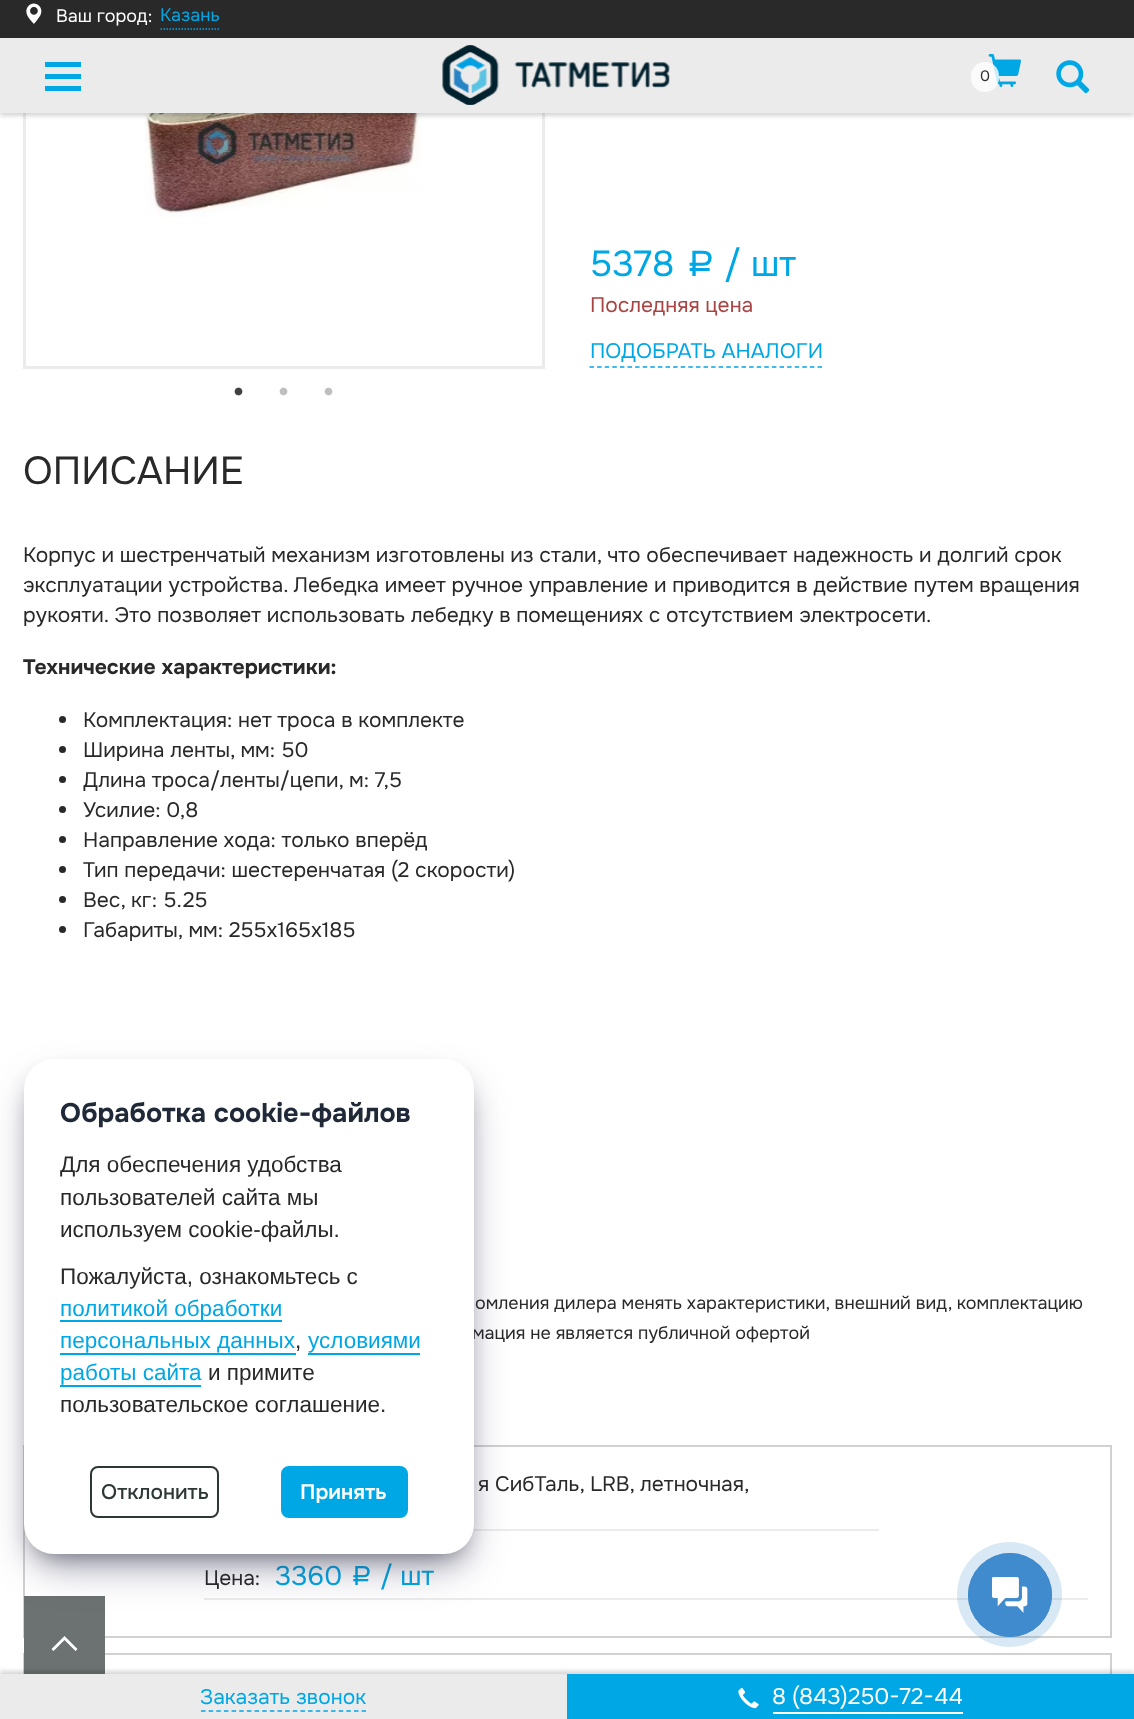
(async () => {
const canvas = document.querySelector("canvas")
canvas.width = 1134
canvas.height = 1719
const c = canvas.getContext("2d")
c.miterLimit = 4
c.fontKerning = "normal"
function T(s,x,y){c.fillText(s,x,y)}
function R(x,y,w,h){c.fillRect(x,y,w,h)}
function Q(x,y,w,h,r){c.beginPath();c.roundRect(x,y,w,h,r);c.fill()}
async function I(src,x,y,w,h){const img=new Image();img.src=src;await img.decode();c.drawImage(img,x,y,w,h)}
let path
c.fillStyle="#fff"
R(0,0,1134,1719)
c.strokeStyle="#ebebeb"
c.lineWidth=3
c.strokeRect(24.5,-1.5,519,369)
await I("5.png",144,113,278,104)
c.fillStyle="#00000029"
c.filter="blur(2px)"
c.beginPath()
c.rect(0,3,1134,113)
c.fill()
c.filter="none"
c.fillStyle="#292929"
R(0,0,1134,38)
await I("1.png",26,3,16,21)
c.font="18px Onest"
c.fillStyle="#fff"
T("Ваш город:",56,22)
path = new Path2D("M160.5 29h60")
c.strokeStyle="#00a7e5"
c.lineWidth=1.5
c.setLineDash([1.5,1.5])
c.stroke(path)
c.fillStyle="#00a7e5"
T("Казань",160,21)
c.fillStyle="#ebebeb"
R(0,38,1134,75)
c.fillStyle="#00a7e5"
R(45,62,36,5)
R(45,74,36,5)
R(45,86,36,5)
await I("2.png",442,45,228,60)
await I("3.png",988,54,33,33)
c.fillStyle="#ffffffcc"
Q(971,62,28,30,14)
c.font="15px Onest"
c.fillStyle="#2f2f2f"
T("0",980,81)
await I("4.png",1056,60,34,34)
await I("6.png",234,387,9,9)
await I("7.png",279,387,9,9)
await I("7.png",324,387,9,9)
c.font="36px Onest"
c.fillStyle="#00a7e5"
T("5378",590,276)
c.font="36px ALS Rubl"
T("a",684,276)
c.font="36px Onest"
T("/ шт",724,276)
c.font="21px Onest"
c.fillStyle="#a94442"
T("Последняя цена",590,312)
path = new Path2D("M589.5 367h232.5")
c.setLineDash([4.5,3.1])
c.stroke(path)
c.fillStyle="#00a7e5"
T("ПОДОБРАТЬ АНАЛОГИ",590,358)
c.font="39px Onest"
c.fillStyle="#292929"
T("ОПИСАНИЕ",23,484)
c.font="21px Onest"
T("Корпус и шестренчатый механизм изготовлены из стали, что обеспечивает надежность и долгий срок",23,562)
T("эксплуатации устройства. Лебедка имеет ручное управление и приводится в действие путем вращения",23,592)
T("рукояти. Это позволяет использовать лебедку в помещениях с отсутствием электросети.",23,622)
c.font="bold 21px Onest"
T("Технические характеристики:",23,674)
c.beginPath()
c.arc(62.5,719.5,3.5,0,7)
c.fill()
c.font="21px Onest"
T("Комплектация: нет троса в комплекте",83,727)
c.beginPath()
c.arc(62.5,749.5,3.5,0,7)
c.fill()
T("Ширина ленты, мм: 50",83,757)
c.beginPath()
c.arc(62.5,779.5,3.5,0,7)
c.fill()
T("Длина троса/ленты/цепи, м: 7,5",83,787)
c.beginPath()
c.arc(62.5,809.5,3.5,0,7)
c.fill()
T("Усилие: 0,8",83,817)
c.beginPath()
c.arc(62.5,839.5,3.5,0,7)
c.fill()
T("Направление хода: только вперёд",83,847)
c.beginPath()
c.arc(62.5,869.5,3.5,0,7)
c.fill()
T("Тип передачи: шестеренчатая (2 скорости)",83,877)
c.beginPath()
c.arc(62.5,899.5,3.5,0,7)
c.fill()
T("Вес, кг: 5.25",83,907)
c.beginPath()
c.arc(62.5,929.5,3.5,0,7)
c.fill()
T("Габариты, мм: 255х165х185",83,937)
c.font="18px Onest"
T("омления дилера менять характеристики, внешний вид, комплектацию",475,1309)
T("мация не является публичной офертой",472,1339)
c.strokeStyle="#d1d1d1"
c.lineWidth=2
c.setLineDash([])
c.strokeRect(24,1446,1087,191)
c.fillStyle="#ececec"
R(473,1529,406,2)
c.font="21px Onest"
c.fillStyle="#292929"
T("я СибТаль, LRB, летночная,",478,1491)
c.fillStyle="#ececec"
R(204,1598,884,2)
c.fillStyle="#292929"
T("Цена:",204,1585)
c.font="27px Onest"
c.fillStyle="#00a7e5"
T("3360",275,1585)
c.font="27px ALS Rubl"
T("a",349,1585)
c.font="27px Onest"
T("/ шт",380,1585)
c.strokeRect(24,1654,1087,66)
c.fillStyle="#6c7171"
R(24,1596,81,78)
c.fillStyle="#00000029"
c.filter="blur(2px)"
c.beginPath()
c.rect(0,1671,1134,45)
c.fill()
c.filter="none"
c.fillStyle="#ebebeb"
R(0,1674,567,45)
path = new Path2D("M201 1711h165")
c.strokeStyle="#00a7e5"
c.lineWidth=1.5
c.setLineDash([4.5,3.15])
c.stroke(path)
c.font="21px Onest"
c.fillStyle="#00a7e5"
T("Заказать звонок",200,1704)
R(567,1674,567,45)
await I("8.png",738,1687,21,22)
c.font="22.5px Onest"
c.fillStyle="#fff"
T("8 (843)250-72-44",772,1704)
R(773,1712,190,2)
c.fillStyle="#00000080"
c.filter="blur(12px)"
c.beginPath()
c.roundRect(36,1083,426,471,18)
c.fill()
c.filter="none"
c.fillStyle="#32325d66"
c.filter="blur(20px)"
c.beginPath()
c.roundRect(32,1086,435,480,23)
c.fill()
c.filter="none"
c.fillStyle="#fff"
Q(24,1059,450,495,30)
c.font="bold 27px Onest"
c.fillStyle="#1f2937"
T("Обработка cookie-файлов",60,1122)
c.font="22.5px Liberation Sans"
c.fillStyle="#292929"
T("Для обеспечения удобства",60,1172)
T("пользователей сайта мы",60,1205)
T("используем cookie-файлы.",60,1237)
T("Пожалуйста, ознакомьтесь с",60,1284)
c.fillStyle="#00a7e5"
R(60,1320,222,2)
T("политикой обработки",60,1316)
T("персональных данных",60,1348)
R(60,1353,236,2)
c.fillStyle="#292929"
T(",",295,1348)
c.fillStyle="#00a7e5"
T("условиями",308,1348)
R(308,1353,112,2)
T("работы сайта",60,1380)
R(60,1385,141,2)
c.fillStyle="#292929"
T("и примите",208,1380)
T("пользовательское соглашение.",60,1412)
c.beginPath()
c.roundRect(91,1467,127,50,7)
c.strokeStyle="#2d3736"
c.lineWidth=2
c.setLineDash([])
c.stroke()
c.font="500 21px Onest"
c.fillStyle="#2d3736"
T("Отклонить",101,1499)
c.fillStyle="#00a7e5"
c.beginPath()
c.roundRect(282,1467,125,50,7)
c.fill()
c.strokeStyle="#00a7e5"
c.stroke()
c.font="600 21px Onest"
c.fillStyle="#fff"
T("Принять",300,1499)
path = new Path2D("M64.5 1636l-13 13l2 2l11-11l11 11l2-2z")
c.fill(path)
c.fillStyle="#3f8bcd33"
c.beginPath()
c.arc(1009.5,1594.5,52.5,0,7)
c.fill()
c.beginPath()
c.arc(1010,1595,41.5,0,7)
c.strokeStyle="#3f8bcd"
c.lineWidth=1
c.stroke()
c.fillStyle="#3f8bcd"
c.beginPath()
c.arc(1010,1595,42,0,7)
c.fill()
await I("9.png",992,1577,36,36)
})()
